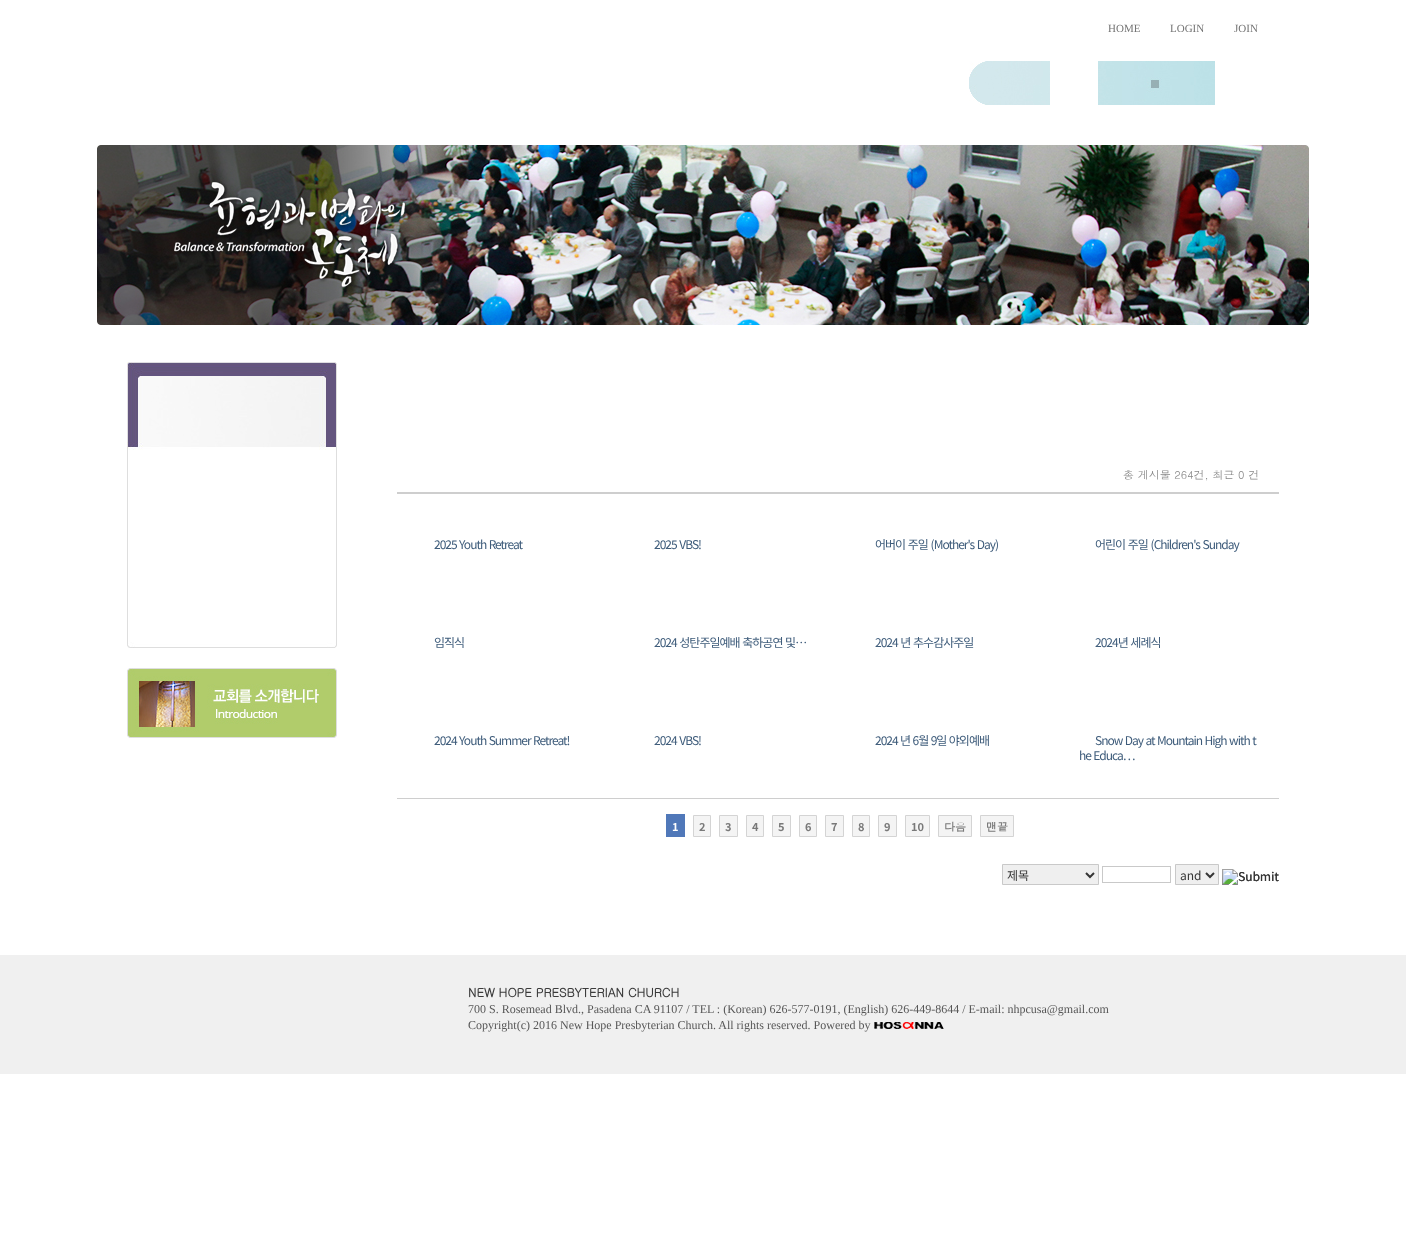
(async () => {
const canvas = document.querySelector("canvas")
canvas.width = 1406
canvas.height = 1233
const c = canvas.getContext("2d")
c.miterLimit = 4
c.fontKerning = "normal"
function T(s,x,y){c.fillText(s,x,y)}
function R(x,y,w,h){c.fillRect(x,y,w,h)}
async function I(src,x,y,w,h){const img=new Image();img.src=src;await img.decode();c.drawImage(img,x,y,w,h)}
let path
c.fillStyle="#fff"
R(0,0,1406,1233)
c.font="11px Liberation Serif"
c.fillStyle="#737373"
T("HOME",1108,32)
T("LOGIN",1170,32)
T("JOIN",1234,32)
await I("1.png",969,61,81,44)
await I("2.png",1098,61,117,44)
await I("3.png",97,145,1212,180)
await I("4.png",127,362,210,286)
await I("5.png",127,668,210,70)
c.font="11px Dotum"
c.fillStyle="#888"
T("총 게시물 264건, 최근 0 건",1123,479)
c.fillStyle="#cecece"
R(397,492,882,2)
c.letterSpacing="-1px"
c.wordSpacing="0.75px"
c.font="12px Noto Sans KR"
c.fillStyle="#3d5b7a"
T("2025 Youth Retreat",434,549)
c.wordSpacing="1px"
T("2025 VBS!",654,549)
T("어버이 주일 (Mother's Day)",875,549)
T("어린이 주일 (Children's Sunday",1095,549)
c.wordSpacing="0px"
T("임직식",434,647)
c.wordSpacing="1px"
T("2024 성탄주일예배 축하공연 및…",654,647)
T("2024 년 추수감사주일",875,647)
T("2024년 세례식",1095,647)
c.wordSpacing="0.75px"
T("2024 Youth Summer Retreat!",434,745)
c.wordSpacing="1px"
T("2024 VBS!",654,745)
c.wordSpacing="0.75px"
T("2024 년 6월 9일 야외예배",875,745)
T("Snow Day at Mountain High with t",1095,745)
T("he Educa…",1079,760)
c.fillStyle="#cecece"
R(397,798,882,1)
c.fillStyle="#5078b9"
R(666,814,19,23)
c.letterSpacing="0px"
c.wordSpacing="0px"
c.font="bold 11px Noto Sans KR"
c.fillStyle="#fff"
T("1",672,831)
c.fillStyle="#f4f4f4"
c.beginPath()
c.rect(693.5,815.5,17,21)
c.fill()
c.strokeStyle="#d4d4d4"
c.stroke()
c.fillStyle="#797979"
T("2",699,831)
c.fillStyle="#f4f4f4"
c.beginPath()
c.rect(719.5,815.5,18,21)
c.fill()
c.stroke()
c.fillStyle="#797979"
T("3",725,831)
c.fillStyle="#f4f4f4"
c.beginPath()
c.rect(746.5,815.5,17,21)
c.fill()
c.stroke()
c.fillStyle="#797979"
T("4",752,831)
c.fillStyle="#f4f4f4"
c.beginPath()
c.rect(772.5,815.5,18,21)
c.fill()
c.stroke()
c.fillStyle="#797979"
T("5",778,831)
c.fillStyle="#f4f4f4"
c.beginPath()
c.rect(799.5,815.5,17,21)
c.fill()
c.stroke()
c.fillStyle="#797979"
T("6",805,831)
c.fillStyle="#f4f4f4"
c.beginPath()
c.rect(825.5,815.5,18,21)
c.fill()
c.stroke()
c.fillStyle="#797979"
T("7",831,831)
c.fillStyle="#f4f4f4"
c.beginPath()
c.rect(852.5,815.5,17,21)
c.fill()
c.stroke()
c.fillStyle="#797979"
T("8",858,831)
c.fillStyle="#f4f4f4"
c.beginPath()
c.rect(878.5,815.5,18,21)
c.fill()
c.stroke()
c.fillStyle="#797979"
T("9",884,831)
c.fillStyle="#f4f4f4"
c.beginPath()
c.rect(905.5,815.5,24,21)
c.fill()
c.stroke()
c.fillStyle="#797979"
T("10",911,831)
c.fillStyle="#f4f4f4"
c.beginPath()
c.rect(938.5,815.5,33,21)
c.fill()
c.stroke()
c.font="bold 11px Dotum"
c.fillStyle="#797979"
T("다음",944,831)
c.fillStyle="#f4f4f4"
c.beginPath()
c.rect(980.5,815.5,33,21)
c.fill()
c.stroke()
c.fillStyle="#797979"
T("맨끝",986,831)
c.fillStyle="#efefef"
c.beginPath()
c.rect(1002.5,864.5,96,20)
c.fill()
c.strokeStyle="#c9c9c9"
c.stroke()
path = new Path2D("M1086 873l4 4l4-4")
c.strokeStyle="#353535"
c.lineWidth=2
c.stroke(path)
c.font="12px Noto Sans KR"
c.fillStyle="#353535"
T("제목",1007,880)
c.strokeStyle="#c9c9c9"
c.lineWidth=1
c.strokeRect(1102.5,866.5,68,16)
c.fillStyle="#efefef"
c.beginPath()
c.rect(1175.5,864.5,43,20)
c.fill()
c.stroke()
path = new Path2D("M1206 873l4 4l4-4")
c.strokeStyle="#353535"
c.lineWidth=2
c.stroke(path)
c.fillStyle="#353535"
T("and",1180,880)
await I("6.png",1222,869,57,16)
T("Submit",1238,881)
c.fillStyle="#f0f0f0"
R(0,955,1406,119)
c.font="bold 12px Gulim"
c.fillStyle="#3b3b3b"
T("NEW HOPE PRESBYTERIAN CHURCH",468,997)
c.font="12px Liberation Serif"
c.fillStyle="#575757"
T("700 S. Rosemead Blvd., Pasadena CA 91107 / TEL : (Korean) 626-577-0191, (English) 626-449-8644 / E-mail: nhpcusa@gmail.com",468,1013)
T("Copyright(c) 2016 New Hope Presbyterian Church. All rights reserved. Powered by",468,1029)
await I("7.png",874,1020,70,9)
})()
